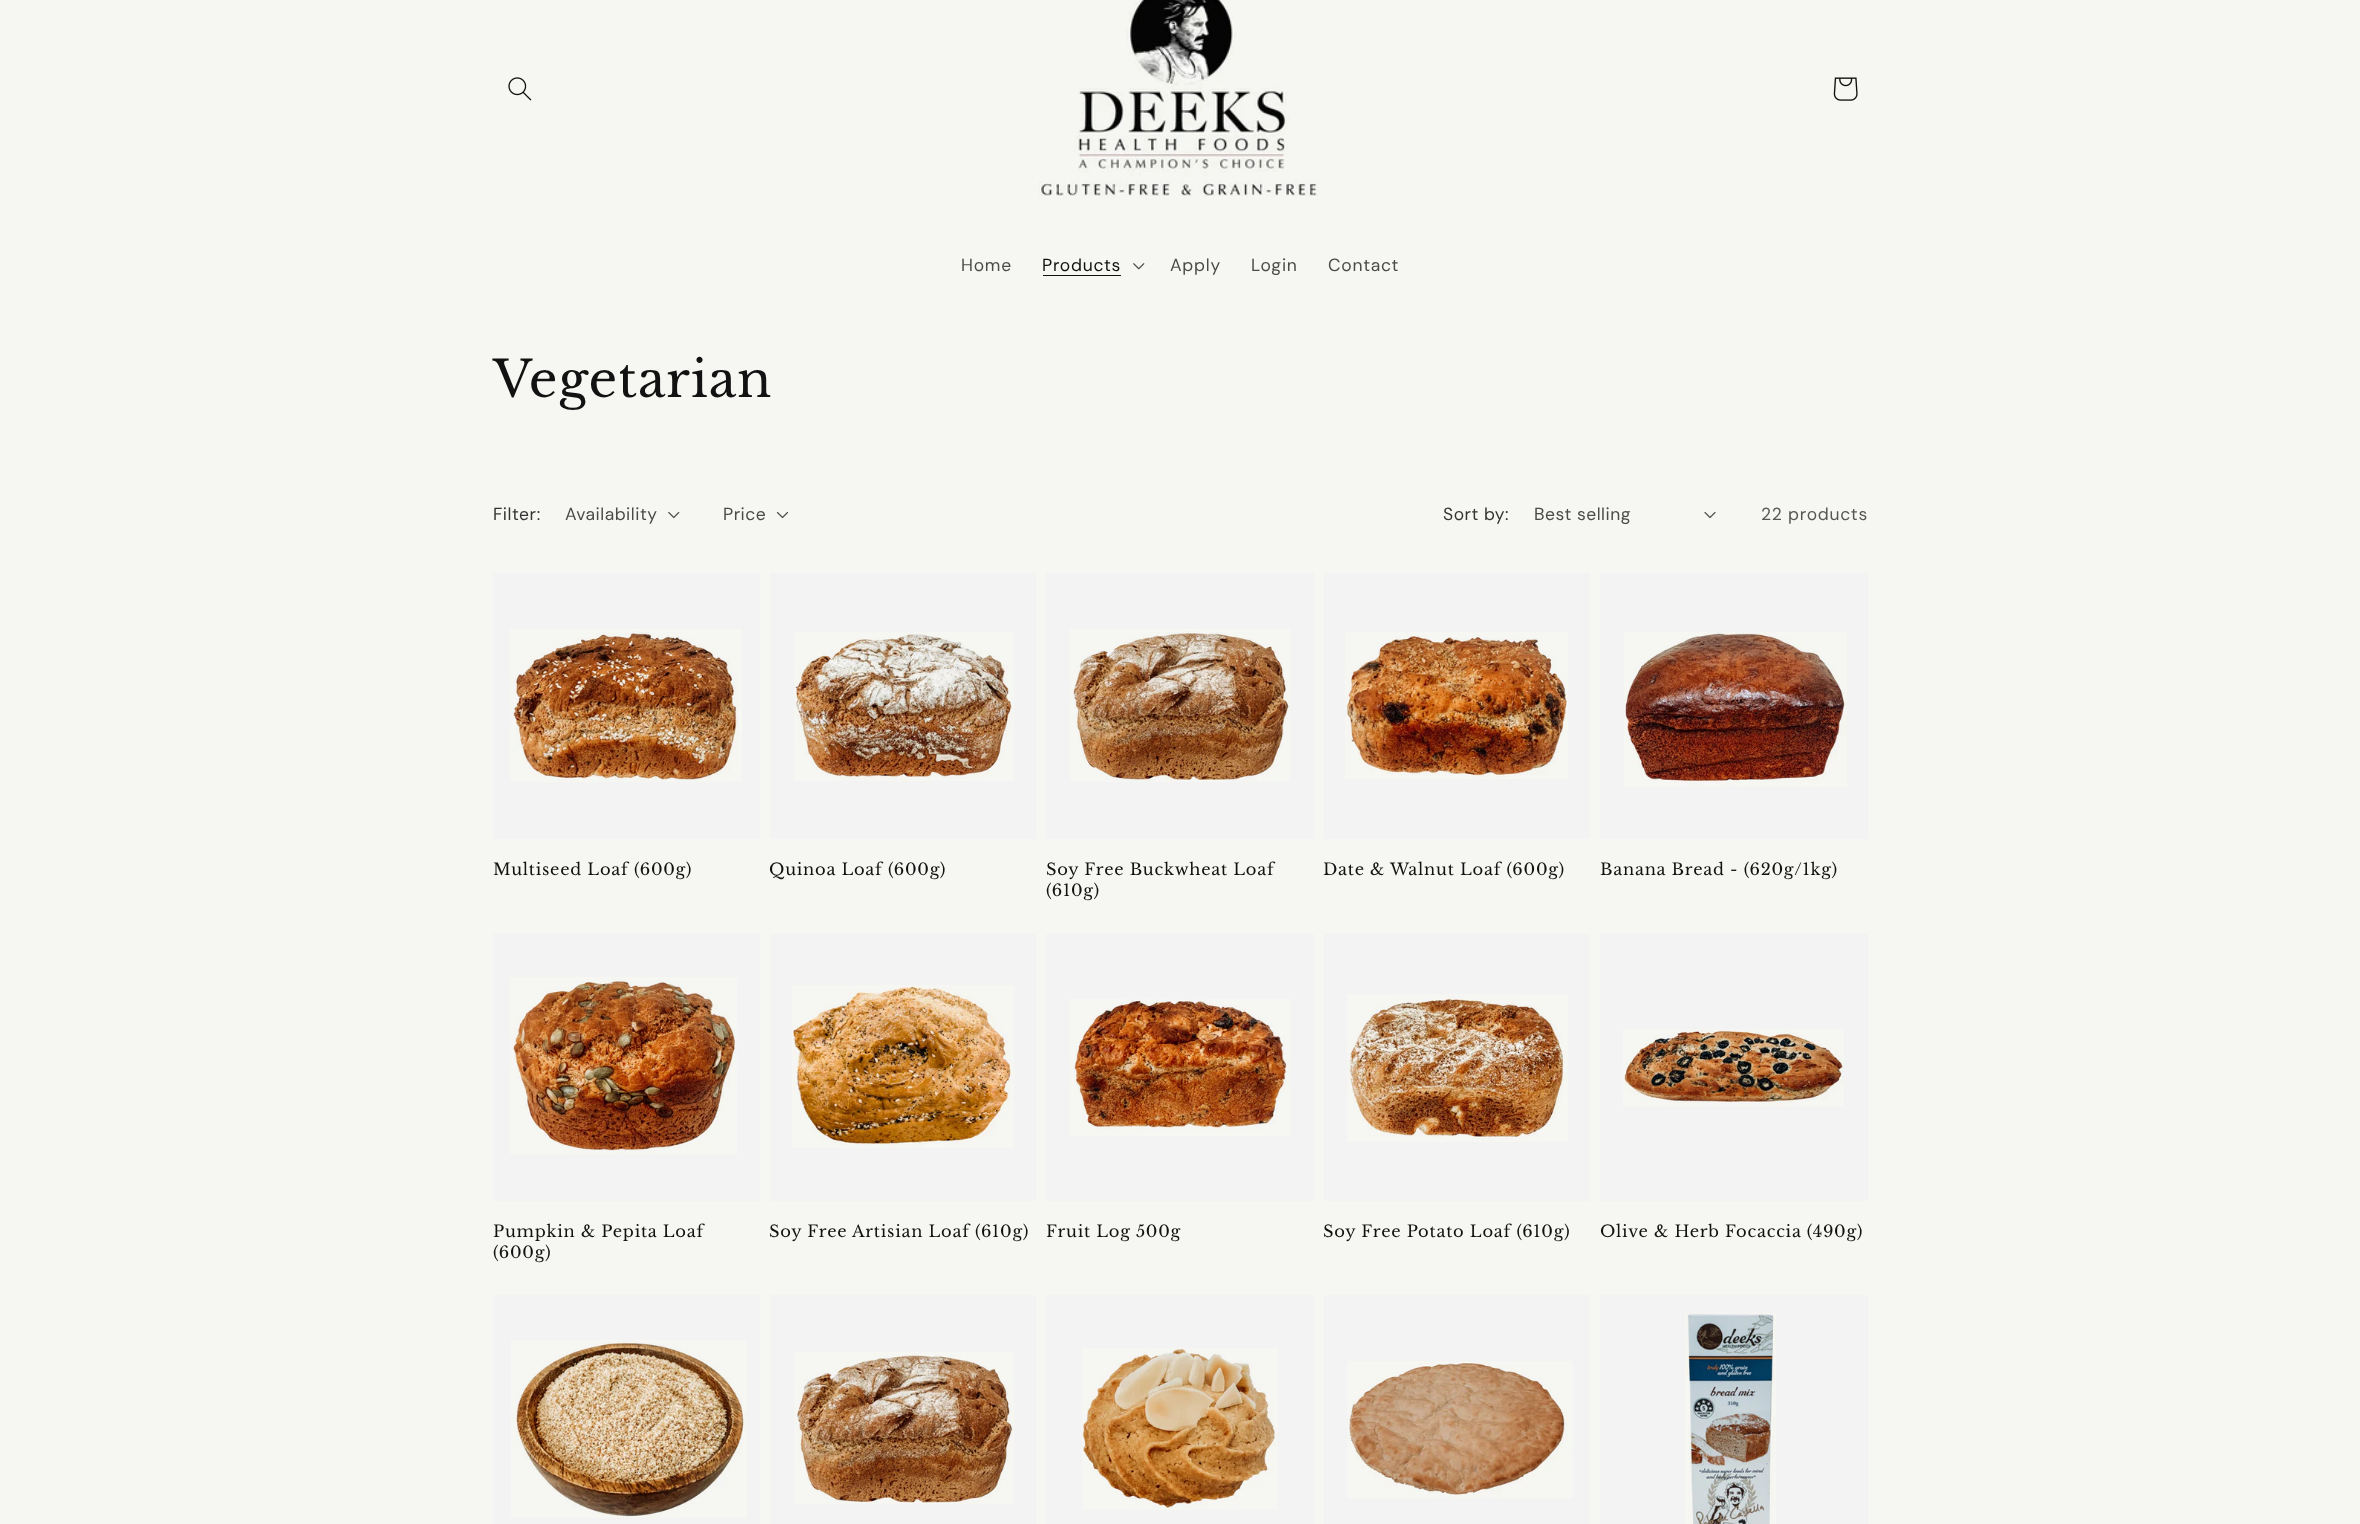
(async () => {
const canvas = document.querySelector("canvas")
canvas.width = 2360
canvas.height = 1524
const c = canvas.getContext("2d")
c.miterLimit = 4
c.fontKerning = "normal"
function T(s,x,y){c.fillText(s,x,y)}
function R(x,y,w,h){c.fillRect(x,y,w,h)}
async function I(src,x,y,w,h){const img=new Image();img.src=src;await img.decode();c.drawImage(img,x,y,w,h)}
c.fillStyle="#f6f6f2"
R(0,0,2360,1524)
await I("1.png",508,77,24,24)
await I("2.png",1039,0,280,197)
await I("3.png",1833,77,25,24)
c.letterSpacing="0.75px"
c.font="17.5px DM Sans"
c.fillStyle="#4b4b4a"
T("Home",961,271)
c.fillStyle="#121212"
T("Products",1042,271)
R(1043,275,78,1)
await I("4.png",1133,263,12,7)
c.fillStyle="#4b4b4a"
T("Apply",1170,271)
T("Login",1251,271)
T("Contact",1328,271)
c.font="50px Libre Baskerville"
c.fillStyle="#121212"
T("Vegetarian",493,397)
c.letterSpacing="0.5px"
c.font="17.5px DM Sans"
c.fillStyle="#343434"
T("Filter:",493,520)
c.fillStyle="#4b4b4a"
T("Availability",565,520)
await I("5.png",668,511,12,8)
T("Price",723,520)
await I("6.png",776,511,13,8)
c.fillStyle="#343434"
T("Sort by:",1443,520)
c.fillStyle="#4b4b4a"
T("Best selling",1534,520)
await I("7.png",1704,512,12,6)
c.letterSpacing="0.75px"
c.fillStyle="#565655"
T("22 products",1761,520)
c.fillStyle="#f3f3f3"
R(493,573,267,266)
await I("8.png",510,629,232,153)
c.font="16.25px Libre Baskerville"
c.fillStyle="#121212"
T("Multiseed Loaf (600g)",493,875)
c.fillStyle="#f3f3f3"
R(770,573,266,266)
await I("9.png",794,632,220,149)
c.fillStyle="#121212"
T("Quinoa Loaf (600g)",769,875)
c.fillStyle="#f3f3f3"
R(1046,573,268,266)
await I("10.png",1070,629,220,153)
c.fillStyle="#121212"
T("Soy Free Buckwheat Loaf",1046,875)
T("(610g)",1046,896)
c.fillStyle="#f3f3f3"
R(1324,573,266,266)
await I("11.png",1345,632,223,147)
c.fillStyle="#121212"
T("Date & Walnut Loaf (600g)",1323,875)
c.fillStyle="#f3f3f3"
R(1600,573,268,266)
await I("12.png",1624,632,223,155)
c.fillStyle="#121212"
T("Banana Bread - (620g/1kg)",1600,875)
c.fillStyle="#f3f3f3"
R(493,934,267,267)
await I("13.png",510,977,227,177)
c.fillStyle="#121212"
T("Pumpkin & Pepita Loaf",493,1237)
T("(600g)",493,1258)
c.fillStyle="#f3f3f3"
R(770,934,266,267)
await I("14.png",792,985,222,163)
c.fillStyle="#121212"
T("Soy Free Artisian Loaf (610g)",769,1237)
c.fillStyle="#f3f3f3"
R(1046,934,268,267)
await I("15.png",1070,999,220,137)
c.fillStyle="#121212"
T("Fruit Log 500g",1046,1237)
c.fillStyle="#f3f3f3"
R(1324,934,266,267)
await I("16.png",1347,994,221,148)
c.fillStyle="#121212"
T("Soy Free Potato Loaf (610g)",1323,1237)
c.fillStyle="#f3f3f3"
R(1600,934,268,267)
await I("17.png",1623,1029,221,77)
c.fillStyle="#121212"
T("Olive & Herb Focaccia (490g)",1600,1237)
c.fillStyle="#f3f3f3"
R(493,1295,267,229)
await I("18.png",511,1340,236,178)
R(770,1295,266,229)
await I("19.png",794,1352,220,152)
R(1046,1295,268,229)
await I("20.png",1082,1348,196,162)
R(1324,1295,266,229)
await I("21.png",1347,1361,226,137)
R(1600,1295,268,229)
await I("22.png",1685,1313,91,211)
})()
